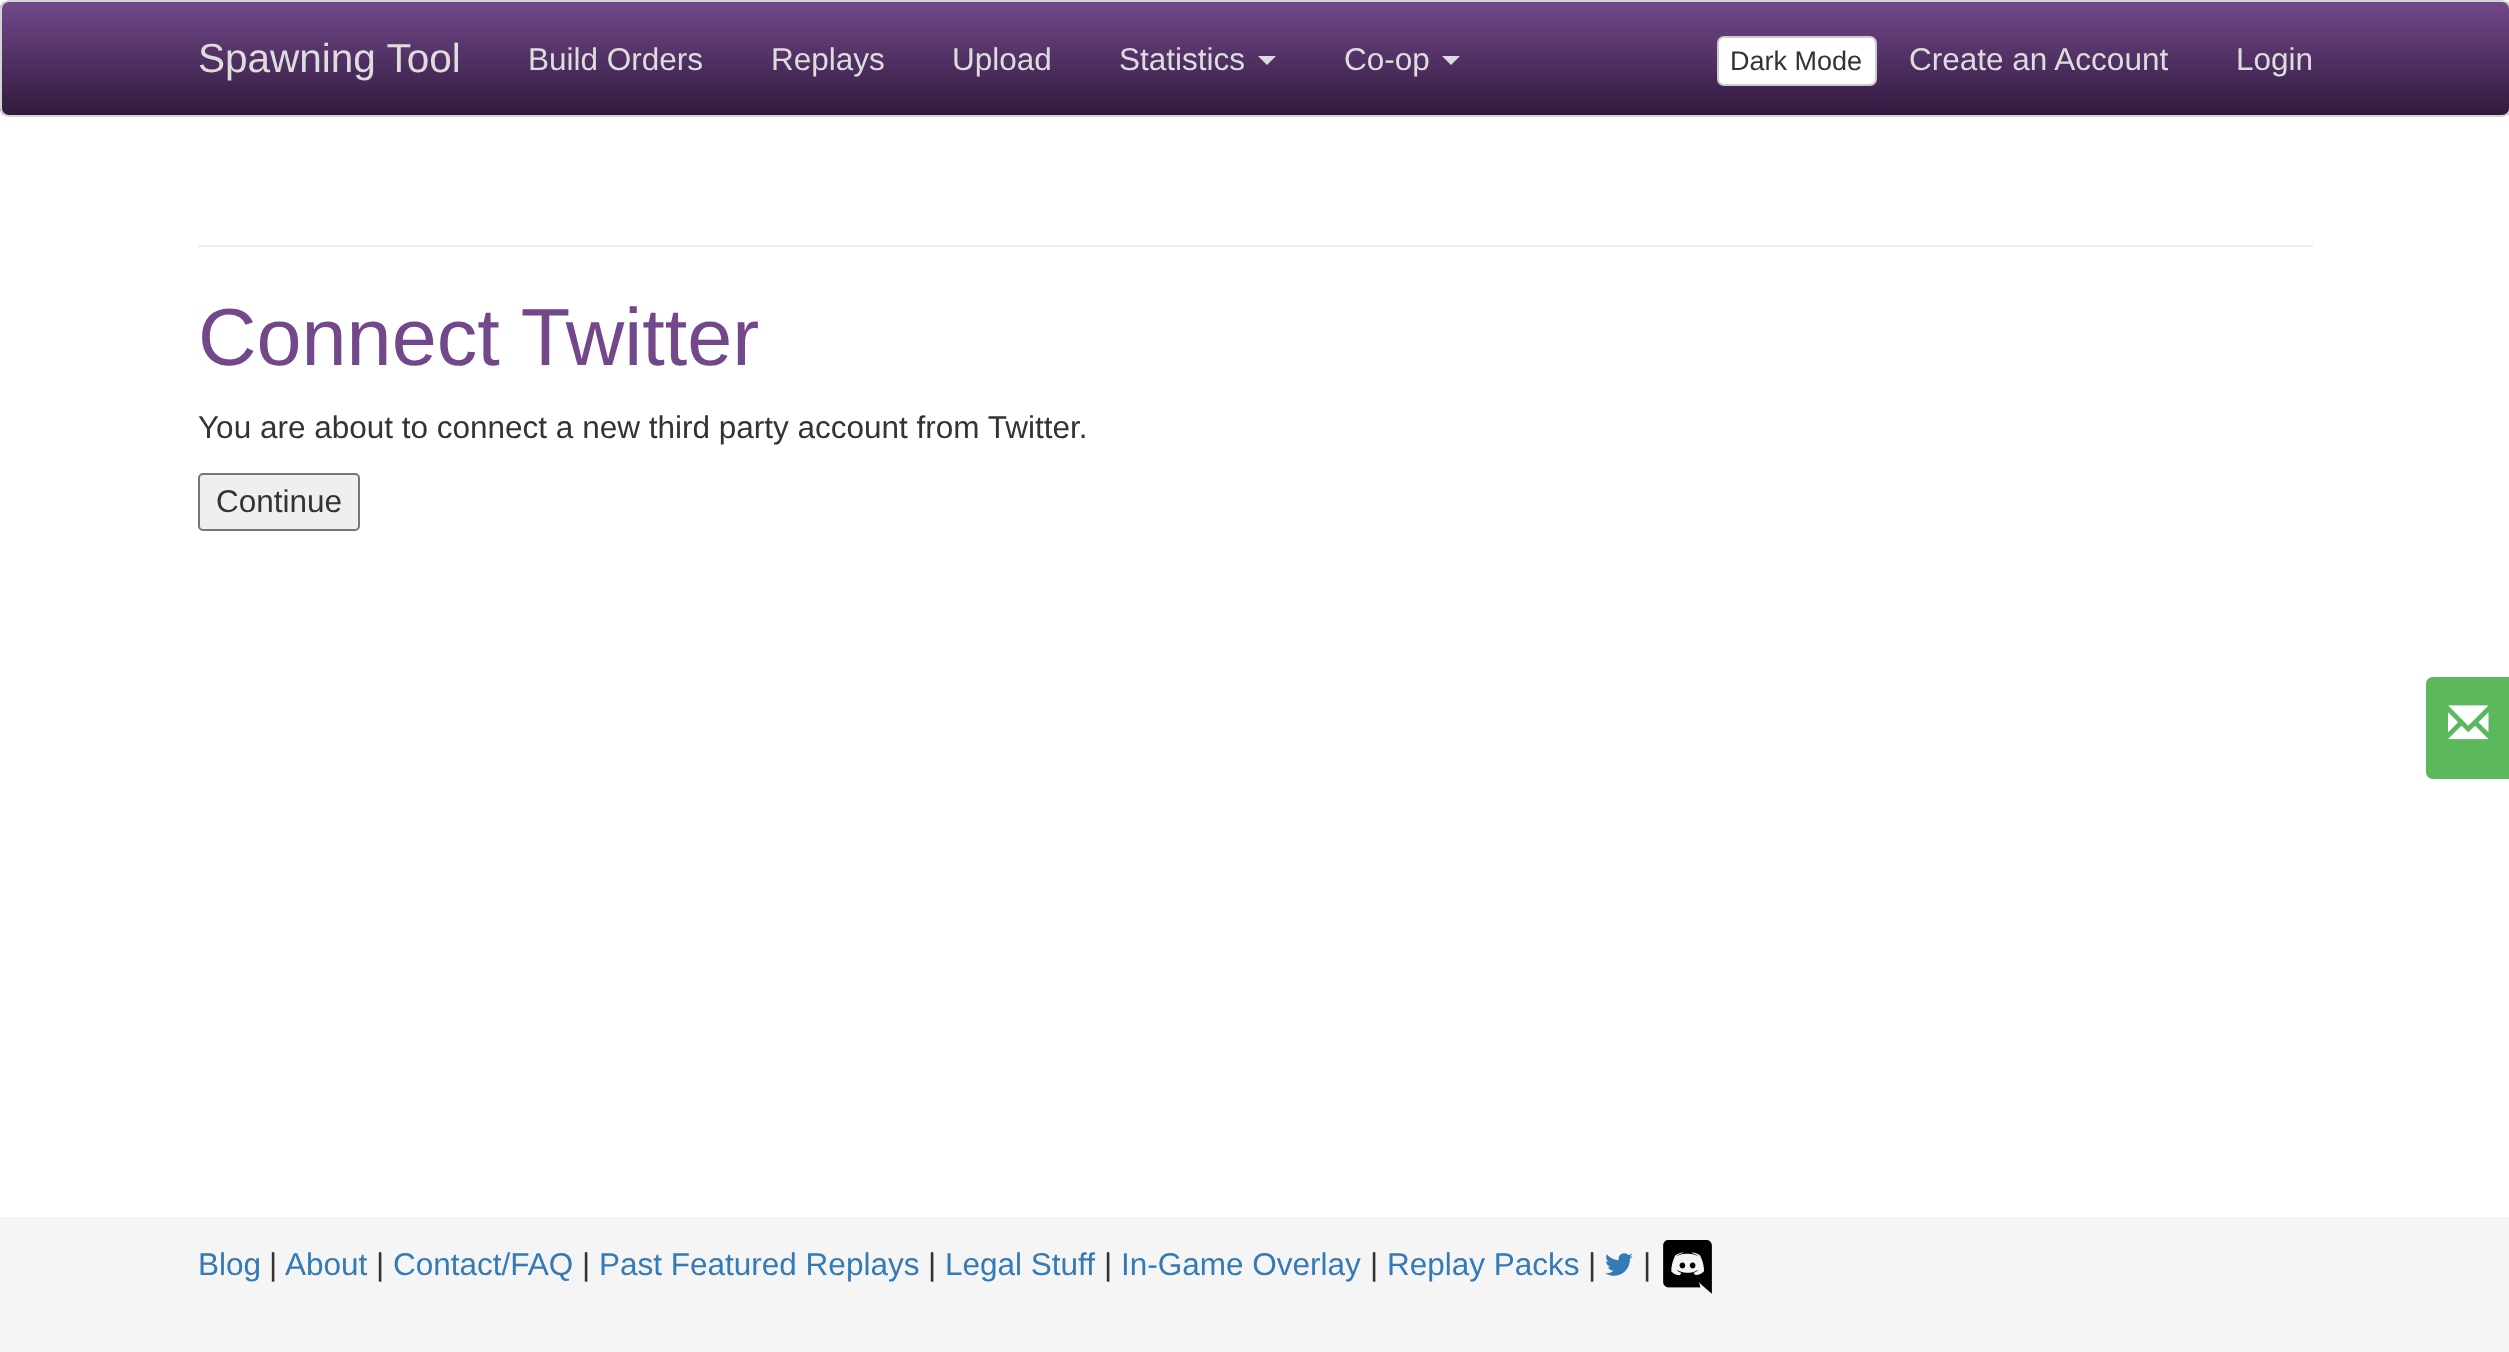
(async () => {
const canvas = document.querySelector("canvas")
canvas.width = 2509
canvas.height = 1352
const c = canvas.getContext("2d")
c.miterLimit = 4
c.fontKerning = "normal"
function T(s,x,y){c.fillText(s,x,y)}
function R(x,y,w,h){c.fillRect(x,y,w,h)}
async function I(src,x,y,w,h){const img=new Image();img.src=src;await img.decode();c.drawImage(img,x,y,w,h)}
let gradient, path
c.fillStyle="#fff"
R(0,0,2509,1352)
c.save()
c.beginPath()
c.roundRect(0,0,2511,117,9)
c.clip()
gradient = c.createLinearGradient(1256,2.2,1256,115)
gradient.addColorStop(0,"#72488b")
gradient.addColorStop(1,"#311a3e")
c.fillStyle = gradient
R(0,2,2509,113)
c.restore()
c.beginPath()
c.roundRect(1,1,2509,115,8)
c.strokeStyle="#d4d4d4"
c.lineWidth=2
c.stroke()
c.font="40.5px Liberation Sans"
c.fillStyle="#ddd"
T("Spawning Tool",198,72)
c.font="31.5px Liberation Sans"
T("Build Orders",528,70)
T("Replays",771,70)
T("Upload",952,70)
T("Statistics",1119,70)
path = new Path2D("M1258 56h18l-9 9z")
c.fill(path)
T("Co-op",1344,70)
path = new Path2D("M1442 56h18l-9 9z")
c.fill(path)
c.fillStyle="#fff"
c.beginPath()
c.roundRect(1718,37,158,48,6)
c.fill()
c.strokeStyle="#ccc"
c.stroke()
c.font="27px Liberation Sans"
c.fillStyle="#333"
T("Dark Mode",1730,70)
c.font="31.5px Liberation Sans"
c.fillStyle="#ddd"
T("Create an Account",1909,70)
T("Login",2236,70)
c.fillStyle="#eee"
R(198,245,2115,2)
c.font="81px Liberation Sans"
c.fillStyle="#72488b"
T("Connect Twitter",198,365)
c.font="31.5px Liberation Sans"
c.fillStyle="#333"
T("You are about to connect a new third party account from Twitter.",198,438)
c.fillStyle="#efefef"
c.beginPath()
c.roundRect(199,474,160,56,4)
c.fill()
c.strokeStyle="#767676"
c.stroke()
c.fillStyle="#333"
T("Continue",216,512)
c.fillStyle="#5cb85c"
path = new Path2D("M2433 677h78v102h-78c-4 0-7-3-7-7v-88c0-4 3-7 7-7z")
c.fill(path)
await I("1.png",2448,705,41,35)
c.fillStyle="#f5f5f5"
R(0,1217,2509,135)
c.fillStyle="#337ab7"
T("Blog",198,1275)
c.fillStyle="#333"
T("|",269,1275)
c.fillStyle="#337ab7"
T("About",285,1275)
c.fillStyle="#333"
T("|",376,1275)
c.fillStyle="#337ab7"
T("Contact/FAQ",393,1275)
c.fillStyle="#333"
T("|",582,1275)
c.fillStyle="#337ab7"
T("Past Featured Replays",599,1275)
c.fillStyle="#333"
T("|",928,1275)
c.fillStyle="#337ab7"
T("Legal Stuff",945,1275)
c.fillStyle="#333"
T("|",1104,1275)
c.fillStyle="#337ab7"
T("In-Game Overlay",1121,1275)
c.fillStyle="#333"
T("|",1370,1275)
c.fillStyle="#337ab7"
T("Replay Packs",1387,1275)
c.fillStyle="#333"
T("|",1588,1275)
await I("2.png",1605,1253,28,23)
T("|",1643,1275)
await I("3.png",1663,1240,49,54)
})()
